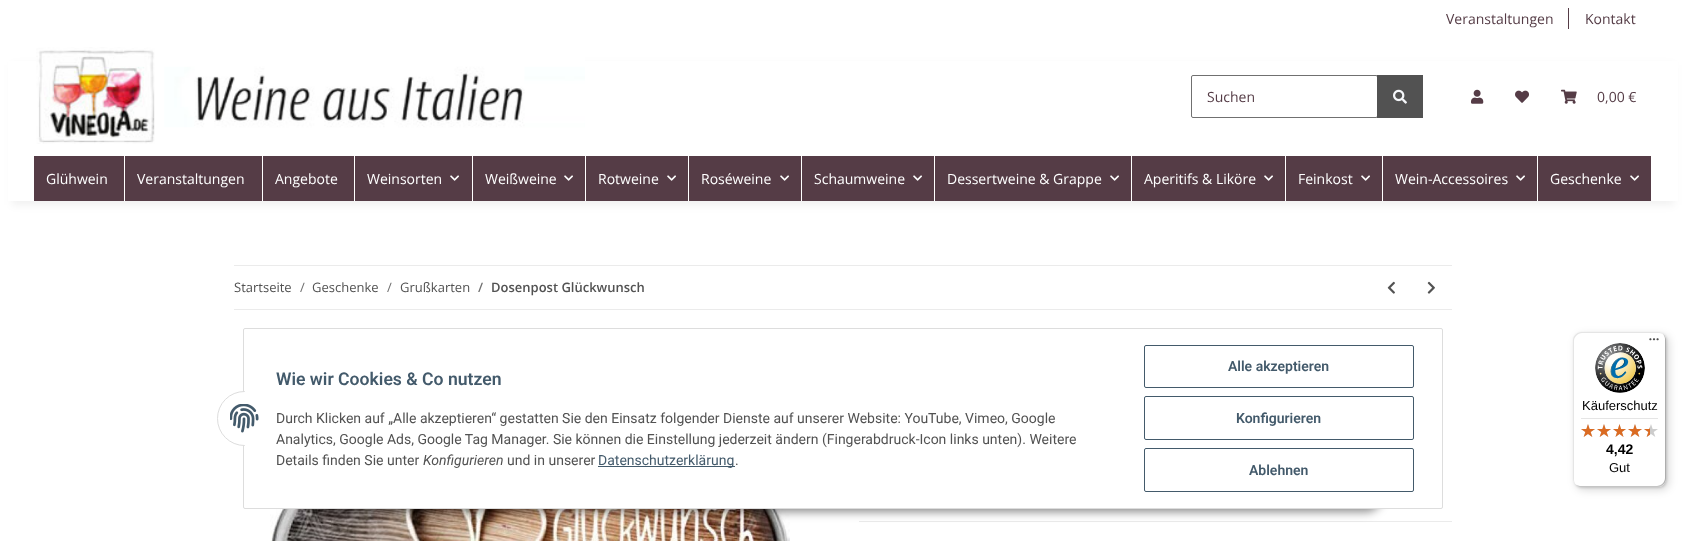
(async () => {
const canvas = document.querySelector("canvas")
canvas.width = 1686
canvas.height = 541
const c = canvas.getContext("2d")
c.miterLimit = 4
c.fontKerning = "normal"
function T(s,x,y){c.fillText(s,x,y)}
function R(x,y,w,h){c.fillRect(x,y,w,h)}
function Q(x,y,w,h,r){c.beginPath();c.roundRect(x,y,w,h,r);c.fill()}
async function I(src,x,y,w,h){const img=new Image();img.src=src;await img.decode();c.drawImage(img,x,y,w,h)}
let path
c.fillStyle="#fff"
R(0,0,1686,541)
c.font="14px Open Sans"
c.fillStyle="#553c46"
T("Veranstaltungen",1446,24)
R(1568,8,1,21)
T("Kontakt",1585,24)
c.fillStyle="#0000000f"
c.filter="blur(4.5px)"
c.beginPath()
c.rect(12,65,1662,140)
c.fill()
c.filter="none"
c.fillStyle="#fff"
R(8,61,1670,140)
await I("1.png",36,47,549,97)
c.beginPath()
c.roundRect(1191.5,75.5,186,42,1.5)
c.strokeStyle="#707070"
c.stroke()
c.fillStyle="#553c46"
T("Suchen",1207,102)
c.fillStyle="#525252"
R(1377,75,46,43)
await I("2.png",1393,89,14,15)
await I("3.png",1471,89,13,15)
await I("4.png",1515,90,14,13)
await I("5.png",1561,89,16,15)
c.fillStyle="#553c46"
T("0,00 €",1597,102)
R(34,156,90,45)
c.fillStyle="#fff"
T("Glühwein",46,184)
c.fillStyle="#553c46"
R(125,156,137,45)
c.fillStyle="#fff"
T("Veranstaltungen",137,184)
c.fillStyle="#553c46"
R(263,156,91,45)
c.fillStyle="#fff"
T("Angebote",275,184)
c.fillStyle="#553c46"
R(355,156,117,45)
c.fillStyle="#fff"
T("Weinsorten",367,184)
await I("6.png",450,175,9,6)
c.fillStyle="#553c46"
R(473,156,112,45)
c.fillStyle="#fff"
T("Weißweine",485,184)
await I("6.png",564,175,9,6)
c.fillStyle="#553c46"
R(586,156,102,45)
c.fillStyle="#fff"
T("Rotweine",598,184)
await I("6.png",667,175,9,6)
c.fillStyle="#553c46"
R(689,156,112,45)
c.fillStyle="#fff"
T("Roséweine",701,184)
await I("6.png",780,175,9,6)
c.fillStyle="#553c46"
R(802,156,132,45)
c.fillStyle="#fff"
T("Schaumweine",814,184)
await I("6.png",913,175,9,6)
c.fillStyle="#553c46"
R(935,156,196,45)
c.fillStyle="#fff"
T("Dessertweine & Grappe",947,184)
await I("6.png",1110,175,9,6)
c.fillStyle="#553c46"
R(1132,156,153,45)
c.fillStyle="#fff"
T("Aperitifs & Liköre",1144,184)
await I("6.png",1264,175,9,6)
c.fillStyle="#553c46"
R(1286,156,96,45)
c.fillStyle="#fff"
T("Feinkost",1298,184)
await I("6.png",1361,175,9,6)
c.fillStyle="#553c46"
R(1383,156,154,45)
c.fillStyle="#fff"
T("Wein-Accessoires",1395,184)
await I("6.png",1516,175,9,6)
c.fillStyle="#553c46"
R(1538,156,113,45)
c.fillStyle="#fff"
T("Geschenke",1550,184)
await I("6.png",1630,175,9,6)
c.fillStyle="#ebebeb"
R(234,265,1218,1)
R(234,309,1218,1)
c.font="13px Open Sans"
c.fillStyle="#525252"
T("Startseite",234,292)
c.fillStyle="#707070"
T("/",300,292)
c.fillStyle="#525252"
T("Geschenke",312,292)
c.fillStyle="#707070"
T("/",387,292)
c.fillStyle="#525252"
T("Grußkarten",400,292)
c.font="600 13px Open Sans"
c.fillStyle="#707070"
T("/",478,292)
c.fillStyle="#525252"
T("Dosenpost Glückwunsch",491,292)
await I("7.png",1387,281,8,13)
await I("8.png",1427,281,8,13)
await I("9.png",270,509,520,32)
c.fillStyle="#ebebeb"
R(859,521,593,1)
c.fillStyle="#00000073"
c.filter="blur(5px)"
c.beginPath()
c.roundRect(304,480,1078,32,16)
c.fill()
c.filter="none"
c.fillStyle="#fff"
c.beginPath()
c.roundRect(243.5,328.5,1199,180,1.5)
c.fill()
c.strokeStyle="#ddd"
c.stroke()
c.beginPath()
c.arc(244.5,418.5,27,0,7)
c.fill()
c.stroke()
R(245,391,27,55)
await I("10.png",230,404,29,29)
c.font="600 17.6px Roboto"
c.fillStyle="#435a6b"
T("Wie wir Cookies & Co nutzen",276,385)
c.font="14px Roboto"
c.fillStyle="#525252"
T("Durch Klicken auf „Alle akzeptieren“ gestatten Sie den Einsatz folgender Dienste auf unserer Website: YouTube, Vimeo, Google",276,423)
T("Analytics, Google Ads, Google Tag Manager. Sie können die Einstellung jederzeit ändern (Fingerabdruck-Icon links unten). Weitere",276,444)
T("Details finden Sie unter",276,465)
c.font="italic 14px Roboto"
T("Konfigurieren",423,465)
c.font="14px Roboto"
T("und in unserer",507,465)
c.fillStyle="#435a6b"
R(598,466,137,1)
T("Datenschutzerklärung",598,465)
c.fillStyle="#525252"
T(".",735,465)
c.beginPath()
c.roundRect(1144.5,345.5,269,42,1.5)
c.strokeStyle="#435a6b"
c.stroke()
c.font="600 14px Roboto"
c.fillStyle="#435a6b"
T("Alle akzeptieren",1228,371)
c.beginPath()
c.roundRect(1144.5,396.5,269,43,1.5)
c.stroke()
T("Konfigurieren",1236,423)
c.beginPath()
c.roundRect(1144.5,448.5,269,43,1.5)
c.stroke()
T("Ablehnen",1249,475)
c.fillStyle="#00000026"
c.filter="blur(4px)"
c.beginPath()
c.roundRect(1576,335,93,155,8)
c.fill()
c.filter="none"
c.filter="blur(1px)"
c.beginPath()
c.roundRect(1574,333,93,155,8)
c.fill()
c.filter="none"
c.fillStyle="#fff"
Q(1573,332,93,155,8)
c.fillStyle="#e5e5e5"
path = new Path2D("M1582 333h77c2 0 4 1 6 3c-2-2-4-4-7-4h-77c-4 0-8 4-8 8v139c0 3 2 5 4 7c-2-2-3-4-3-6v-139c0-4 4-8 8-8z")
c.fill(path)
c.fillStyle="#ccc"
path = new Path2D("M1574 483c2 2 4 4 7 4h77c4 0 8-4 8-8v-139c0-3-2-5-4-7c2 2 3 4 3 6v139c0 4-4 8-8 8h-77c-2 0-4-1-6-3z")
c.fill(path)
c.fillStyle="#32323233"
path = new Path2D("M1575 484c1 2 4 3 6 3h77c4 0 8-4 8-8v-139c0-2-1-5-3-6c1 1 2 3 2 5v139c0 5-3 8-8 8h-77c-2 0-4-1-5-2z")
c.fill(path)
await I("11.png",1649,338,10,3)
c.fillStyle="#ffffff4d"
path = new Path2D("M1575 484c1 2 4 3 6 3h77c4 0 8-4 8-8v-1c0 5-4 8-8 8h-78c-2 0-4-1-5-2z")
c.fill(path)
await I("12.png",1595,343,50,50)
c.font="13px Liberation Sans"
c.fillStyle="#000"
T("Käuferschutz",1582,410)
c.fillStyle="#e5e5e5"
R(1581,418,77,1)
await I("13.png",1581,424,14,13)
await I("13.png",1597,424,14,13)
await I("14.png",1613,424,13,13)
await I("13.png",1628,424,14,13)
await I("13.png",1644,424,14,13)
await I("15.png",1581,424,14,13)
await I("15.png",1597,424,14,13)
await I("16.png",1613,424,13,13)
await I("15.png",1628,424,14,13)
await I("17.png",1644,427,6,10)
c.font="bold 14px Liberation Sans"
c.fillStyle="#000"
T("4,42",1606,454)
c.font="13px Liberation Sans"
T("Gut",1609,472)
})()
